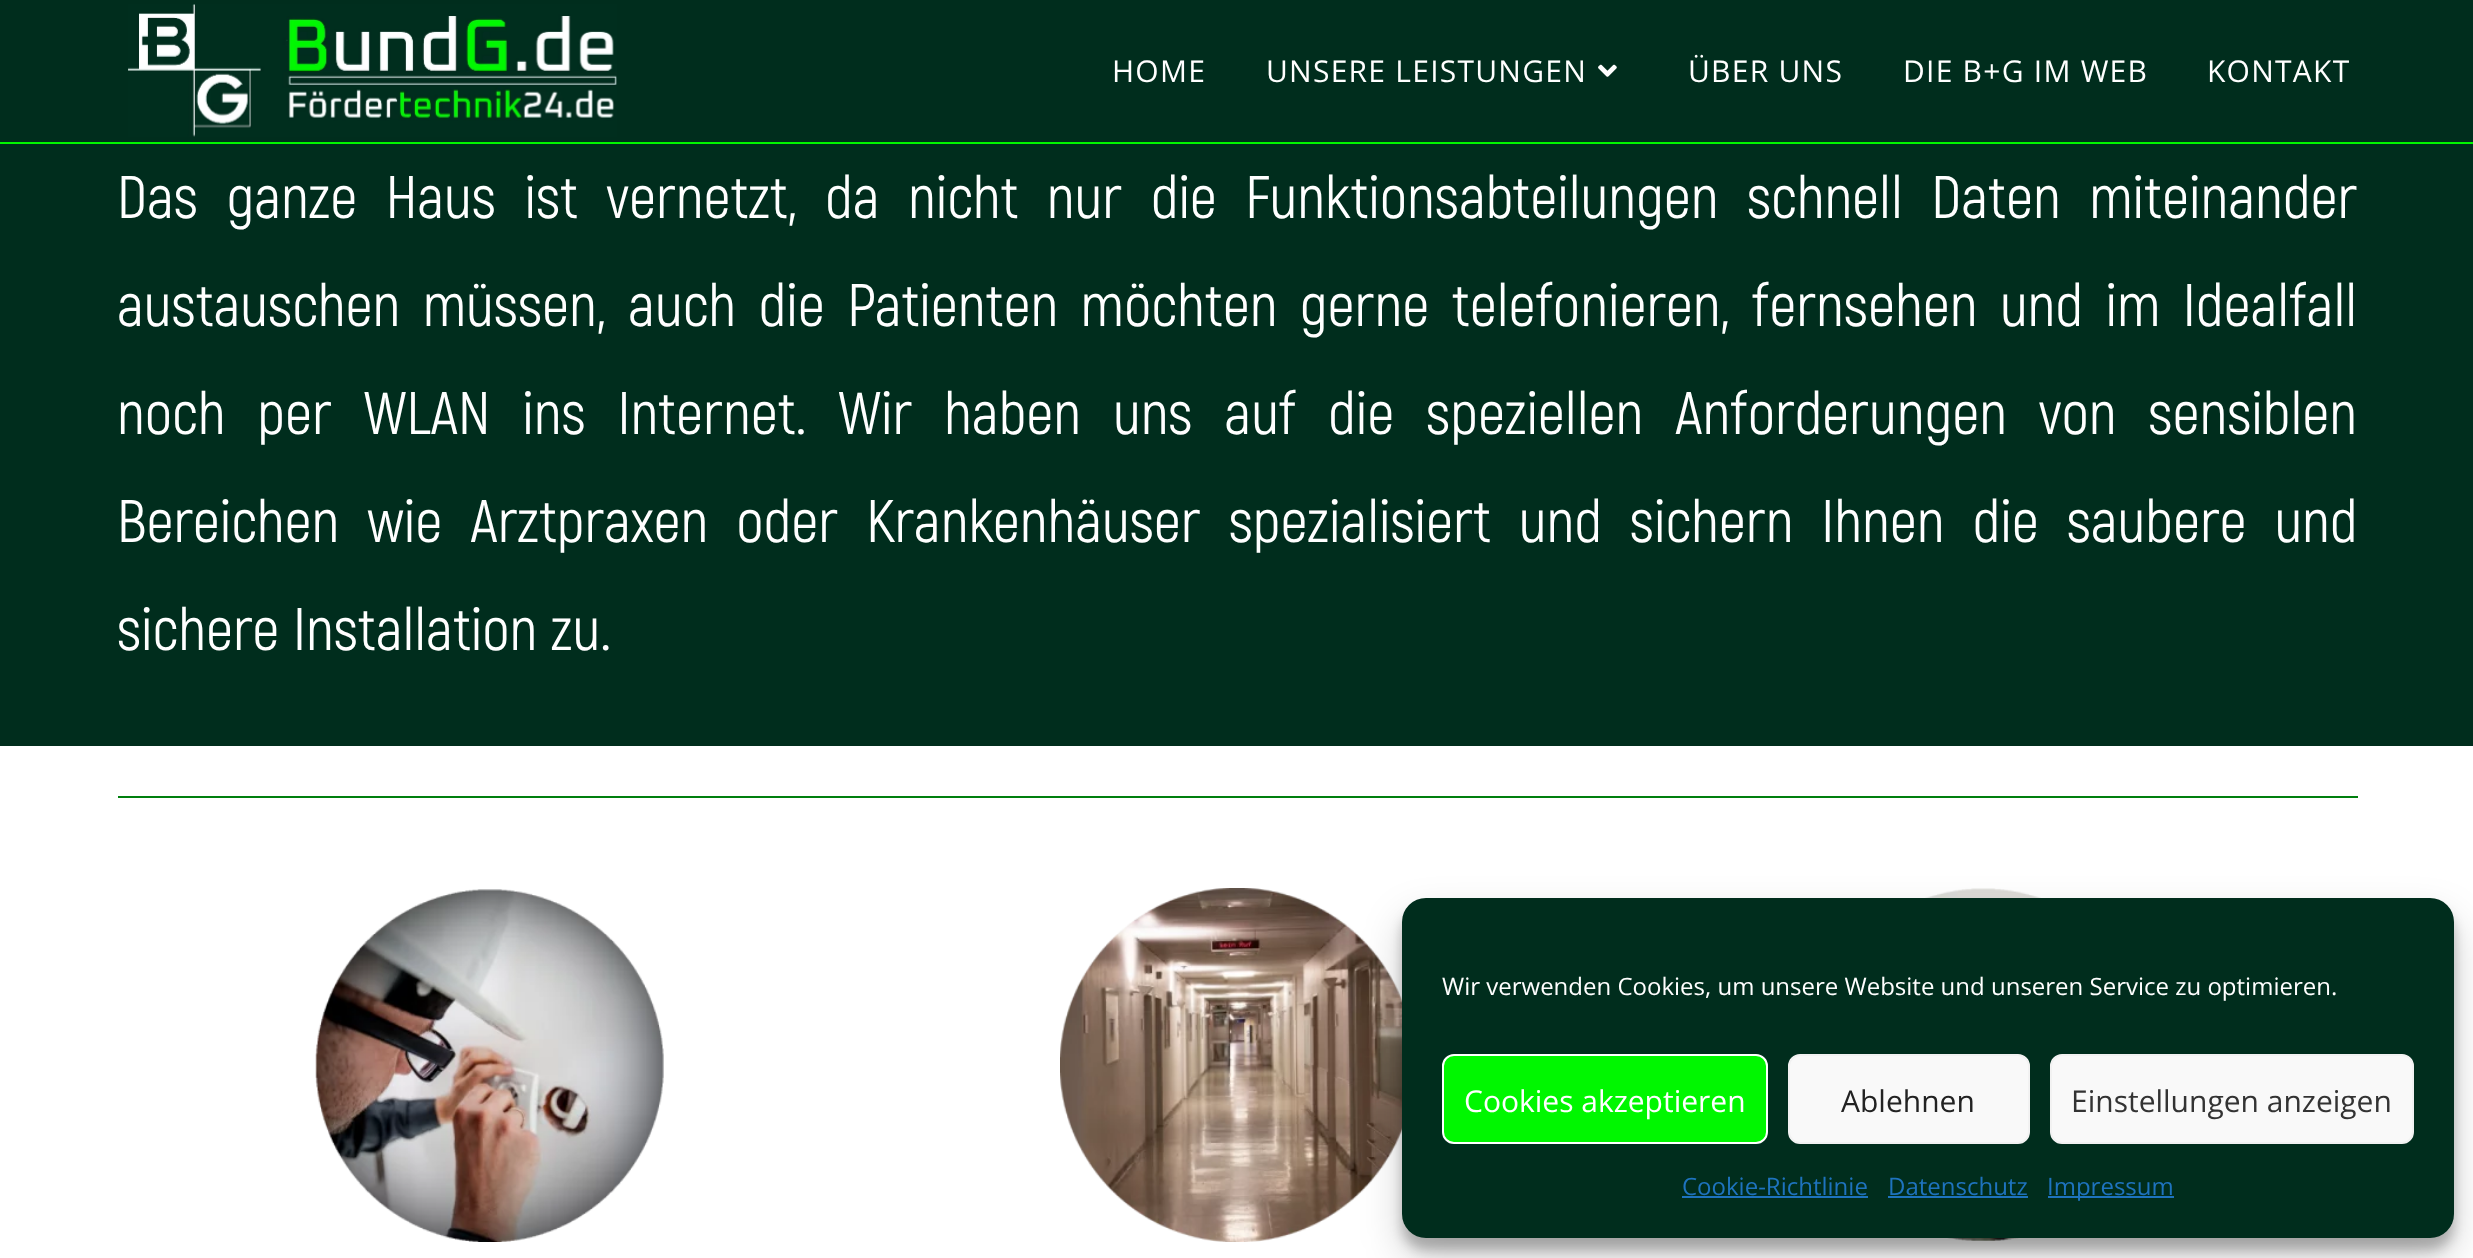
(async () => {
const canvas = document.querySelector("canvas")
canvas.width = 2473
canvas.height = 1258
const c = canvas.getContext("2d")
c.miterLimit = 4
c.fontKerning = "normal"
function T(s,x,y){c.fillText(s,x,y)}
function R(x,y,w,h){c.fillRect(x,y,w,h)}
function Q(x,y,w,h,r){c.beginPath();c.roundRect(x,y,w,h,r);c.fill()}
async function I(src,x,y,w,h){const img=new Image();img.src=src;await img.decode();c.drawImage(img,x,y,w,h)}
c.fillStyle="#fff"
R(0,0,2473,1258)
c.fillStyle="#002d1d"
R(0,0,2473,142)
c.fillStyle="#00f700"
R(0,142,2473,2)
await I("1.png",128,4,489,133)
c.letterSpacing="1.25px"
c.font="30px Open Sans"
c.fillStyle="#fff"
T("HOME",1112,82)
T("UNSERE LEISTUNGEN",1266,82)
await I("2.png",1598,64,19,13)
T("ÜBER UNS",1688,82)
T("DIE B+G IM WEB",1903,82)
T("KONTAKT",2207,82)
c.fillStyle="#002d1d"
R(0,144,2473,602)
c.letterSpacing="0px"
c.wordSpacing="14.75px"
c.font="60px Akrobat"
c.fillStyle="#fff"
T("Das ganze Haus ist vernetzt, da nicht nur die Funktionsabteilungen schnell Daten miteinander",117,218)
c.wordSpacing="8.75px"
T("austauschen müssen, auch die Patienten möchten gerne telefonieren, fernsehen und im Idealfall",117,326)
c.wordSpacing="18.1px"
T("noch per WLAN ins Internet. Wir haben uns auf die speziellen Anforderungen von sensiblen",117,434)
c.wordSpacing="14.25px"
T("Bereichen wie Arztpraxen oder Krankenhäuser spezialisiert und sichern Ihnen die saubere und",117,542)
c.wordSpacing="0px"
T("sichere Installation zu.",117,650)
c.fillStyle="#007f0e"
R(118,796,2240,2)
await I("3.png",315,889,349,353)
await I("4.png",1060,888,342,354)
await I("5.png",1925,888,116,353)
c.fillStyle="#0000003b"
c.filter="blur(6px)"
c.beginPath()
c.roundRect(1402,910,1052,340,24)
c.fill()
c.filter="none"
c.fillStyle="#00000030"
c.filter="blur(20px)"
c.beginPath()
c.roundRect(1402,918,1052,340,24)
c.fill()
c.filter="none"
c.fillStyle="#002d1d"
Q(1402,898,1052,340,24)
c.font="24px Open Sans"
c.fillStyle="#fff"
T("Wir verwenden Cookies, um unsere Website und unseren Service zu optimieren.",1442,995)
c.fillStyle="#00f700"
c.beginPath()
c.roundRect(1443,1055,324,88,11)
c.fill()
c.strokeStyle="#fff"
c.lineWidth=2
c.stroke()
c.font="30px Open Sans"
c.fillStyle="#fff"
T("Cookies akzeptieren",1464,1112)
c.fillStyle="#f9f9f9"
c.beginPath()
c.roundRect(1789,1055,240,88,11)
c.fill()
c.strokeStyle="#f2f2f2"
c.stroke()
c.fillStyle="#222"
T("Ablehnen",1841,1112)
c.fillStyle="#f9f9f9"
c.beginPath()
c.roundRect(2051,1055,362,88,11)
c.fill()
c.stroke()
c.fillStyle="#333"
T("Einstellungen anzeigen",2071,1112)
c.font="24px Open Sans"
c.fillStyle="#1e73be"
T("Cookie-Richtlinie",1682,1195)
R(1682,1196,186,2)
T("Datenschutz",1888,1195)
R(1888,1196,140,2)
R(2048,1196,126,2)
T("Impressum",2047,1195)
})()
